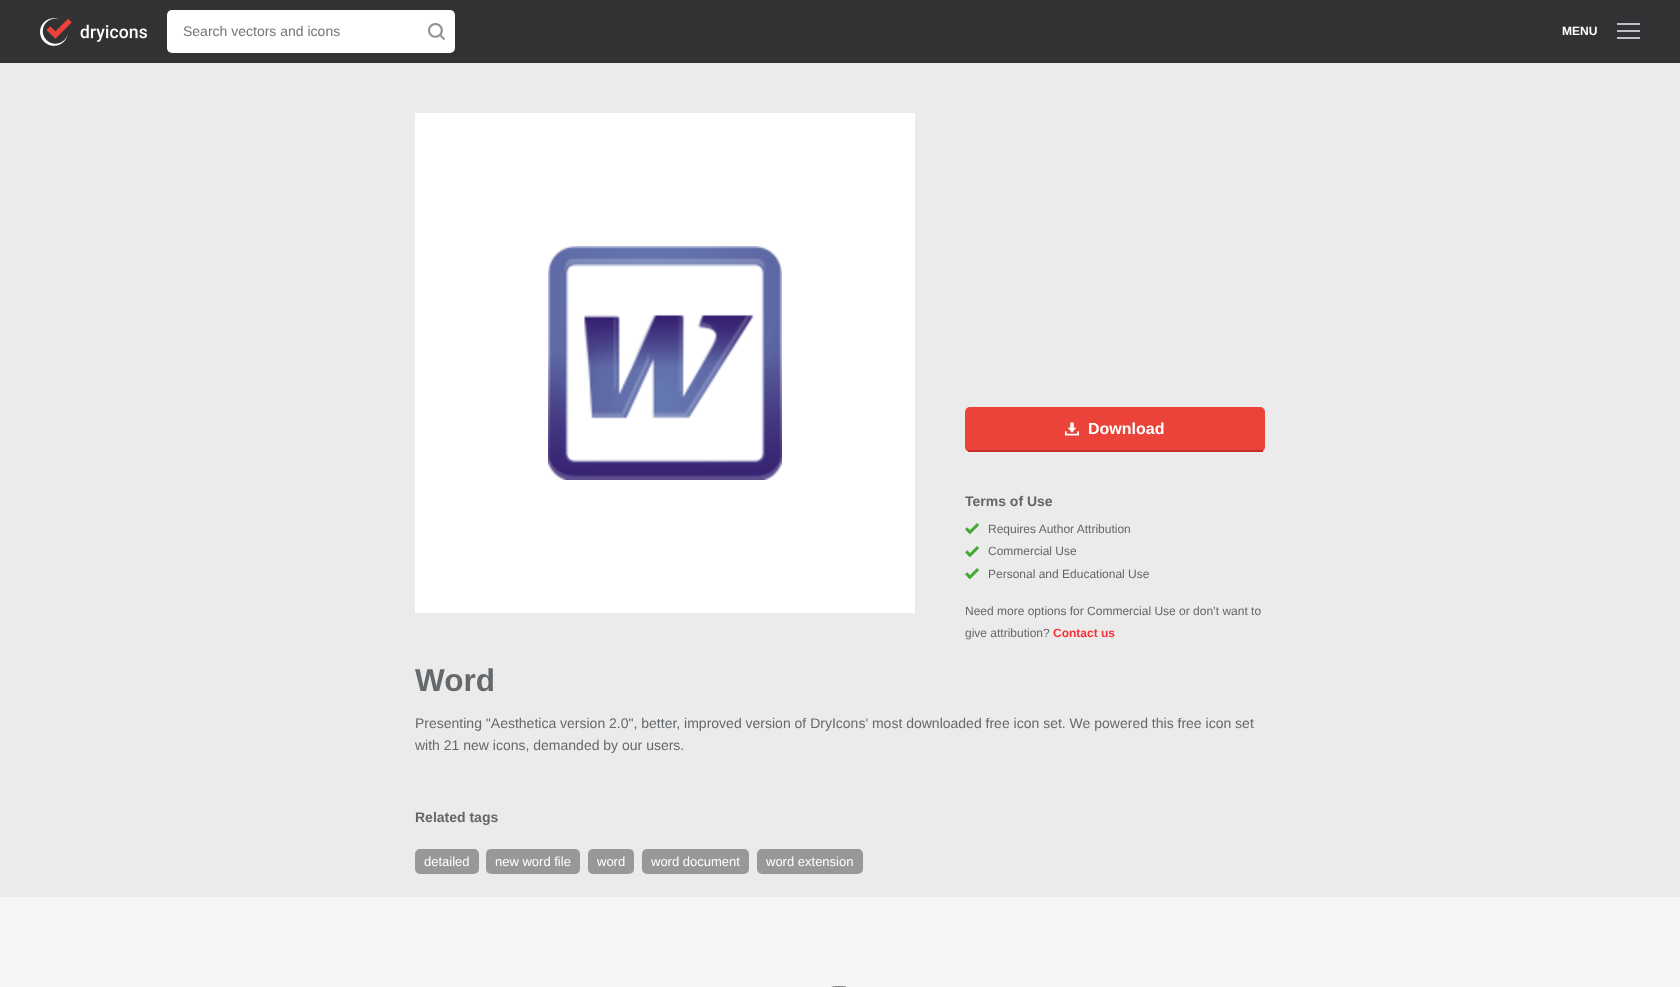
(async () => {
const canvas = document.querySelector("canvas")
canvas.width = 1680
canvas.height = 987
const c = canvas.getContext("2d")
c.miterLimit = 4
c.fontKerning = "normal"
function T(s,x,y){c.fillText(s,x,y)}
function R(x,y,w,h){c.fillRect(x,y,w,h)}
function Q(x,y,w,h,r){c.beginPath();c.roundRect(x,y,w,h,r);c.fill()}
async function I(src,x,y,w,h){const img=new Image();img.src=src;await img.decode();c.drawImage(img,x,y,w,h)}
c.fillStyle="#ebebeb"
R(0,0,1680,987)
c.fillStyle="#313233"
R(0,0,1680,63)
await I("1.png",40,18,107,28)
c.fillStyle="#fff"
Q(167,10,288,43,5)
c.font="14px Liberation Sans"
c.fillStyle="#757575"
T("Search vectors and icons",183,36)
await I("2.png",428,23,17,17)
c.font="bold 12px Liberation Sans"
c.fillStyle="#fff"
T("MENU",1562,35)
await I("3.png",1617,23,23,16)
R(415,113,500,500)
await I("4.png",548,246,234,234)
c.fillStyle="#eb433a"
Q(965,407,300,45,5)
c.fillStyle="#c13028"
R(968,450,295,2)
await I("5.png",1065,422,14,14)
c.font="bold 16px Liberation Sans"
c.fillStyle="#fff"
T("Download",1088,434)
c.font="bold 14px Liberation Sans"
c.fillStyle="#666"
T("Terms of Use",965,506)
await I("6.png",965,523,14,12)
c.font="12px Liberation Sans"
T("Requires Author Attribution",988,533)
await I("7.png",965,546,14,11)
T("Commercial Use",988,555)
await I("7.png",965,568,14,11)
T("Personal and Educational Use",988,578)
T("Need more options for Commercial Use or don’t want to",965,615)
T("give attribution?",965,637)
c.font="bold 12px Liberation Sans"
c.fillStyle="#fb2f36"
T("Contact us",1053,637)
c.font="bold 31.5px Liberation Sans"
c.fillStyle="#65696c"
T("Word",415,691)
c.font="14px Liberation Sans"
T("Presenting \"Aesthetica version 2.0\", better, improved version of DryIcons' most downloaded free icon set. We powered this free icon set",415,728)
T("with 21 new icons, demanded by our users.",415,750)
c.font="bold 14px Liberation Sans"
c.fillStyle="#666"
T("Related tags",415,822)
c.fillStyle="#989898"
Q(415,849,64,25,5)
c.font="13px Liberation Sans"
c.fillStyle="#fff"
T("detailed",424,866)
c.fillStyle="#989898"
Q(486,849,94,25,5)
c.fillStyle="#fff"
T("new word file",495,866)
c.fillStyle="#989898"
Q(588,849,46,25,5)
c.fillStyle="#fff"
T("word",597,866)
c.fillStyle="#989898"
Q(642,849,107,25,5)
c.fillStyle="#fff"
T("word document",651,866)
c.fillStyle="#989898"
Q(757,849,106,25,5)
c.fillStyle="#fff"
T("word extension",766,866)
c.beginPath()
c.roundRect(414.5,986.5,135,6,4.5)
c.strokeStyle="#eee"
c.stroke()
c.beginPath()
c.roundRect(558.5,986.5,135,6,4.5)
c.stroke()
c.beginPath()
c.roundRect(702.5,986.5,135,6,4.5)
c.stroke()
c.beginPath()
c.roundRect(846.5,986.5,135,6,4.5)
c.stroke()
c.beginPath()
c.roundRect(990.5,986.5,135,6,4.5)
c.stroke()
c.beginPath()
c.roundRect(1134.5,986.5,130,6,4.5)
c.stroke()
c.fillStyle="#f7f7f7e6"
R(0,897,1680,90)
c.beginPath()
c.roundRect(828.5,986.5,21,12,10.5)
c.strokeStyle="#888"
c.stroke()
})()
